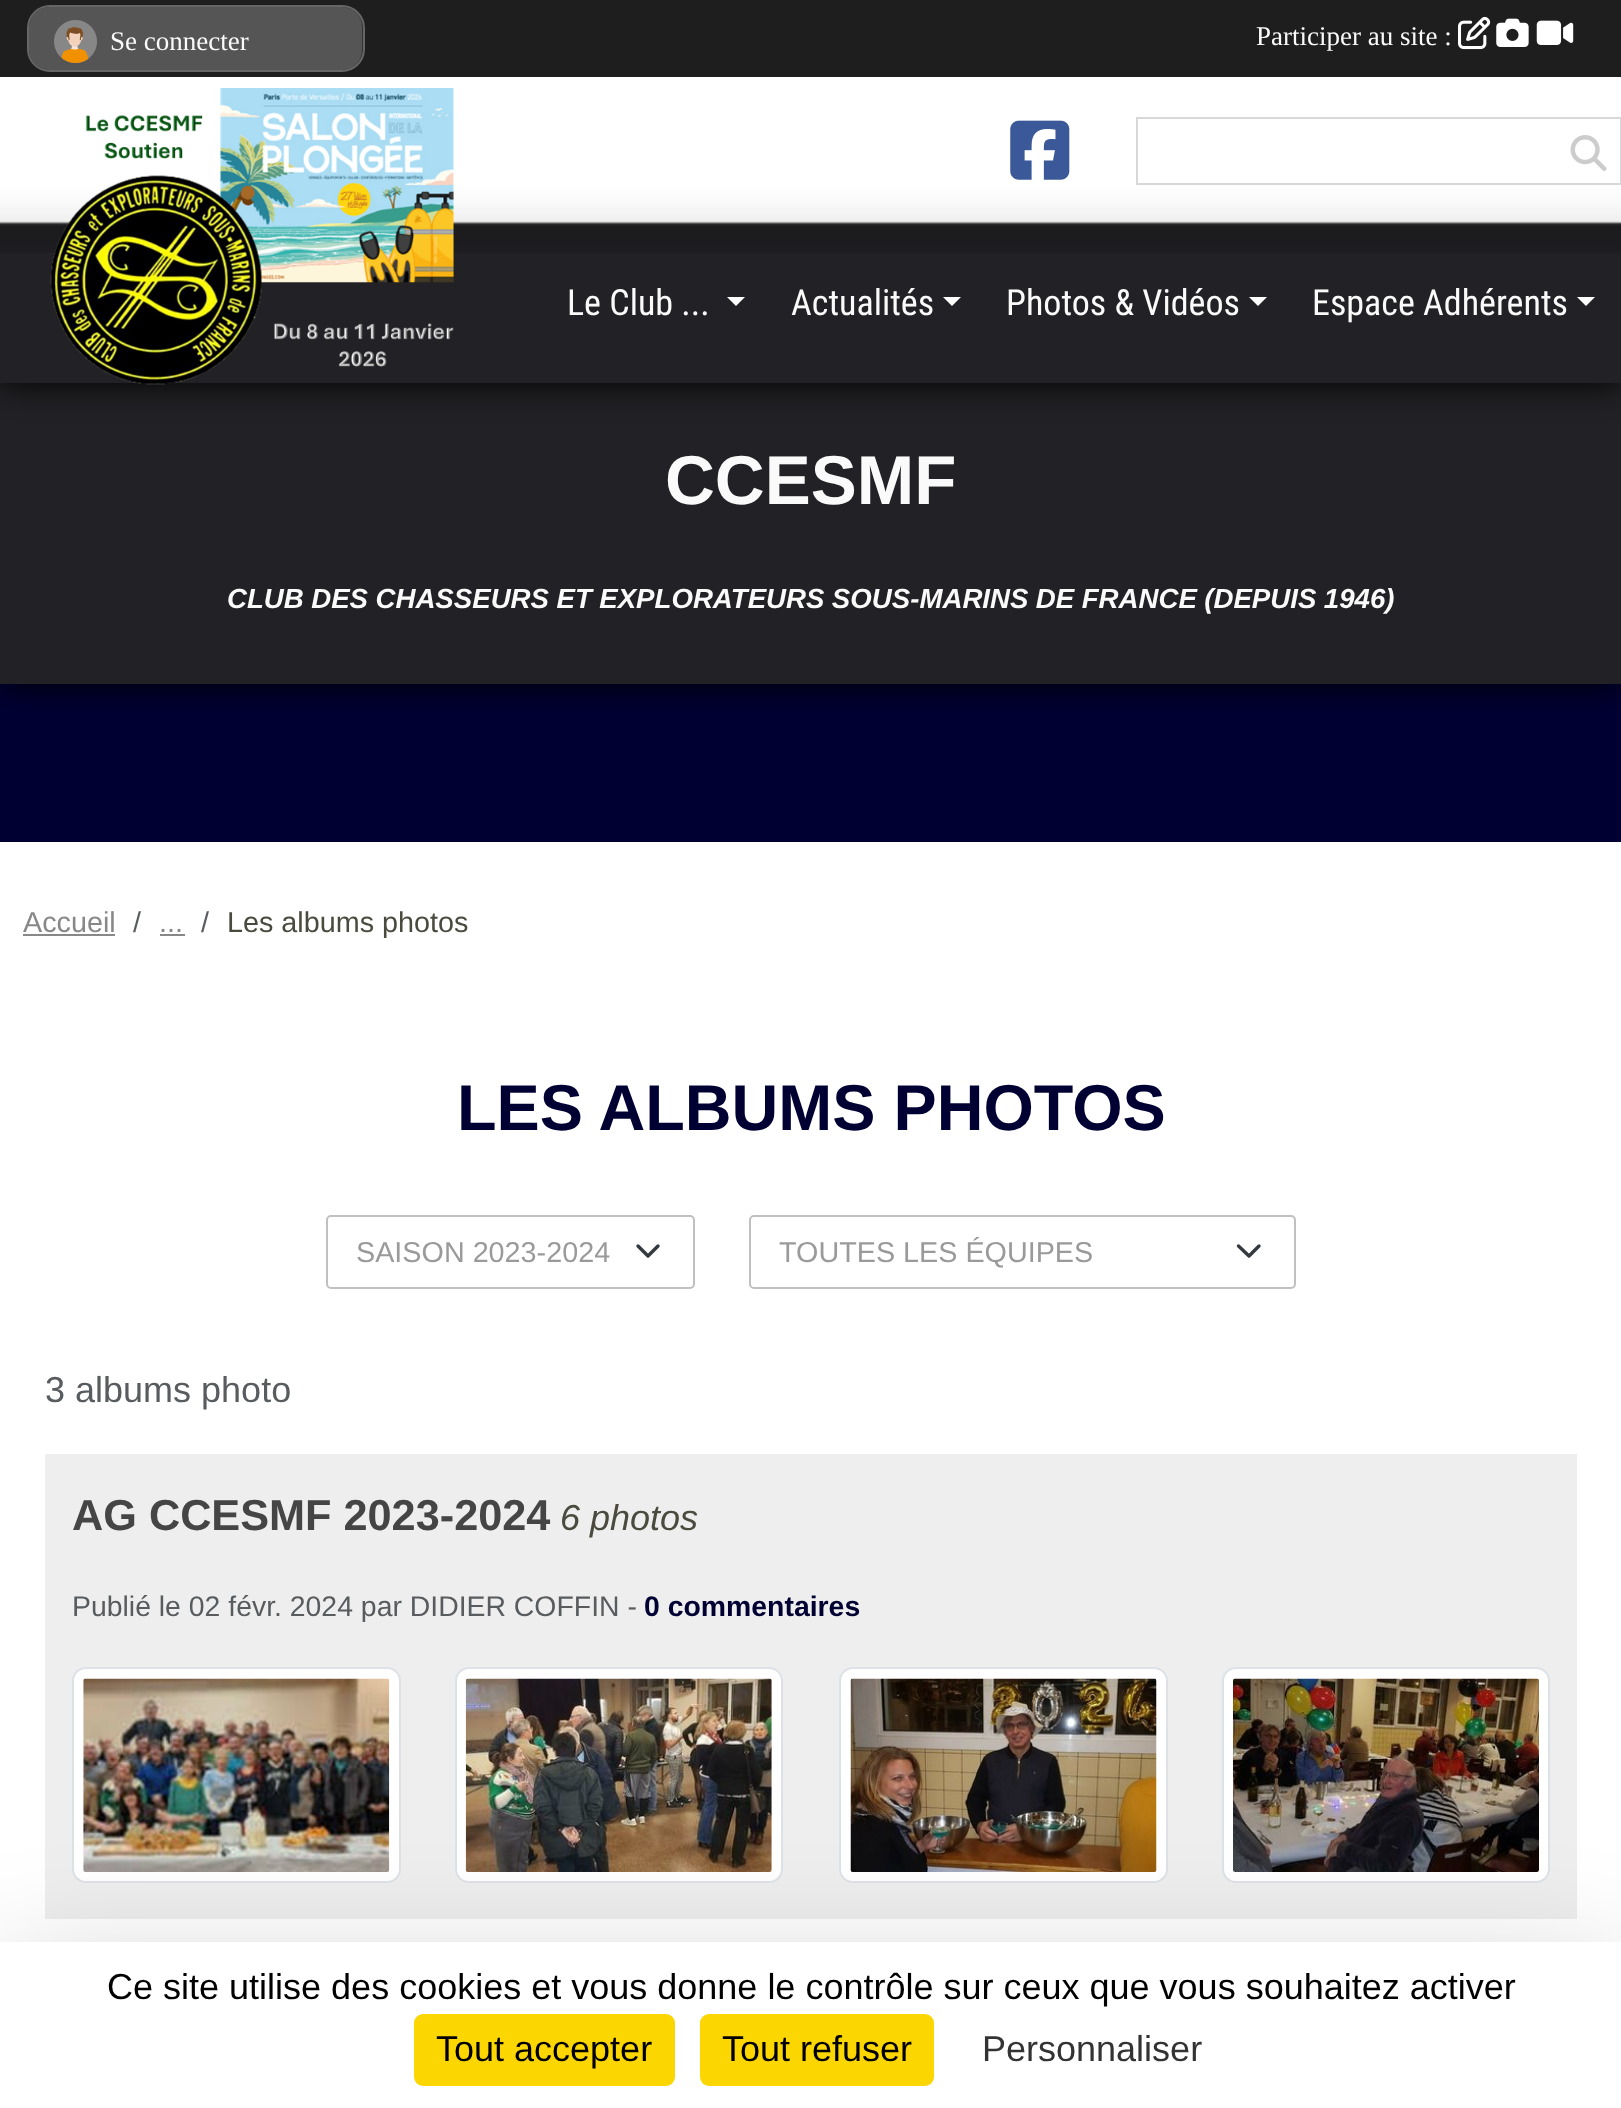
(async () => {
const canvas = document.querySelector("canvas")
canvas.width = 1621
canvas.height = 2108
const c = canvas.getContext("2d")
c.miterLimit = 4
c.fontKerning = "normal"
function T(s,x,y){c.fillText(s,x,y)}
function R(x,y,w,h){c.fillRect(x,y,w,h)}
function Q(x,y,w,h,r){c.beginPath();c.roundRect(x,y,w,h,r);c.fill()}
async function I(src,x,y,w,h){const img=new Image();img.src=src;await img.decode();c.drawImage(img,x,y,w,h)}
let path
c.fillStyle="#003"
R(0,0,1621,2108)
c.fillStyle="#000"
c.filter="blur(17px)"
c.beginPath()
c.rect(0,383,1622,301)
c.fill()
c.filter="none"
c.fillStyle="#222226"
R(0,383,1621,301)
c.fillStyle="#000"
c.filter="blur(17px)"
c.beginPath()
c.rect(0,77,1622,306)
c.fill()
c.filter="none"
c.fillStyle="#1e1e1e"
R(0,0,1621,77)
c.fillStyle="#333"
c.beginPath()
c.roundRect(28,6,336,65,22)
c.fill()
c.strokeStyle="#666"
c.lineWidth=2
c.stroke()
c.fillStyle="#555"
Q(29,7,333,63,20)
await I("1.png",54,20,43,43)
c.font="27px Liberation Serif"
c.fillStyle="#fafafa"
T("Se connecter",110,50)
T("Participer au site :",1256,45)
await I("2.png",1458,16,33,34)
await I("3.png",1496,18,33,29)
await I("4.png",1536,20,38,25)
c.fillStyle="#222226"
R(0,221,1621,162)
await I("5.png",0,77,1621,176)
await I("6.png",50,88,404,297)
await I("7.png",1010,120,60,60)
c.strokeStyle="#d8d8d8"
c.strokeRect(1137,118,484,66)
await I("8.png",1570,135,37,36)
c.font="36px Roboto Condensed"
c.fillStyle="#fafafa"
T("Le Club ...",567,315)
c.fillStyle="#fff"
path = new Path2D("M727 297h18l-9 9z")
c.fill(path)
c.fillStyle="#fafafa"
T("Actualités",791,315)
c.fillStyle="#fff"
path = new Path2D("M943 297h18l-9 9z")
c.fill(path)
c.fillStyle="#fafafa"
T("Photos & Vidéos",1006,315)
c.fillStyle="#fff"
path = new Path2D("M1249 297h18l-9 9z")
c.fill(path)
c.fillStyle="#fafafa"
T("Espace Adhérents",1312,315)
c.fillStyle="#fff"
path = new Path2D("M1577 297h18l-9 9z")
c.fill(path)
c.font="bold 69px Liberation Sans"
c.fillStyle="#fafafa"
T("CCESMF",665,504)
c.wordSpacing="-0.25px"
c.font="italic bold 27.65px Liberation Sans"
T("CLUB DES CHASSEURS ET EXPLORATEURS SOUS-MARINS DE FRANCE (DEPUIS 1946)",227,608)
c.fillStyle="#fff"
R(0,842,1621,1100)
c.wordSpacing="0px"
c.font="28.75px Liberation Sans"
c.fillStyle="#888"
T("Accueil",23,932)
R(23,934,92,2)
c.fillStyle="#595c5f"
T("/",133,932)
c.fillStyle="#888"
T("...",159,932)
R(160,934,25,2)
c.fillStyle="#595c5f"
T("/",201,932)
c.fillStyle="#4a4a3e"
T("Les albums photos",227,932)
c.font="bold 64.75px Liberation Sans"
c.fillStyle="#003"
T("LES ALBUMS PHOTOS",457,1130)
path = new Path2D("M638 1246l10 10l10-10")
c.strokeStyle="#343a40"
c.lineWidth=3.4
c.lineCap="round"
c.lineJoin="round"
c.stroke(path)
c.beginPath()
c.roundRect(327,1216,367,72,4)
c.strokeStyle="#c0c0c0"
c.lineWidth=2
c.lineJoin="miter"
c.stroke()
c.font="28.75px Liberation Sans"
c.fillStyle="#9a9a9a"
T("SAISON 2023-2024",356,1262)
path = new Path2D("M1238.5 1246l10.5 10l10-10")
c.strokeStyle="#343a40"
c.lineWidth=3.4
c.lineJoin="round"
c.stroke(path)
c.beginPath()
c.roundRect(750,1216,545,72,4)
c.strokeStyle="#c0c0c0"
c.lineWidth=2
c.lineJoin="miter"
c.stroke()
T("TOUTES LES ÉQUIPES",779,1262)
c.font="36px Liberation Sans"
c.fillStyle="#595c5f"
T("3 albums photo",45,1402)
c.fillStyle="#eee"
R(45,1454,1532,465)
c.font="bold 43.25px Liberation Sans"
c.fillStyle="#454545"
T("AG CCESMF 2023-2024",72,1530)
c.font="italic 36px Liberation Sans"
c.fillStyle="#4a4a3e"
T("6 photos",560,1530)
c.font="28.4px Liberation Sans"
c.fillStyle="#595c5f"
T("Publié le 02 févr. 2024 par DIDIER COFFIN -",72,1616)
c.font="bold 28.4px Liberation Sans"
c.fillStyle="#003"
T("0 commentaires",644,1616)
c.fillStyle="#fff"
c.beginPath()
c.roundRect(73,1668,327,214,13)
c.fill()
c.strokeStyle="#dee2e6"
c.stroke()
await I("9.png",83,1678,307,194)
c.beginPath()
c.roundRect(456,1668,326,214,13)
c.fill()
c.stroke()
await I("10.png",465,1678,307,194)
c.beginPath()
c.roundRect(840,1668,327,214,13)
c.fill()
c.stroke()
await I("11.png",850,1678,307,194)
c.beginPath()
c.roundRect(1223,1668,326,214,13)
c.fill()
c.stroke()
await I("12.png",1233,1678,306,194)
c.fillStyle="#00000040"
c.filter="blur(67.5px)"
c.beginPath()
c.rect(0,1987,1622,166)
c.fill()
c.filter="none"
c.fillStyle="#fff"
R(0,1942,1621,166)
c.font="36px Liberation Sans"
c.fillStyle="#000"
T("Ce site utilise des cookies et vous donne le contrôle sur ceux que vous souhaitez activer",107,1999)
c.fillStyle="#fbd600"
Q(414,2014,261,72,9)
c.fillStyle="#000"
T("Tout accepter",436,2061)
c.fillStyle="#fbd600"
Q(700,2014,234,72,9)
c.fillStyle="#000"
T("Tout refuser",722,2061)
c.fillStyle="#333"
T("Personnaliser",982,2061)
})()
